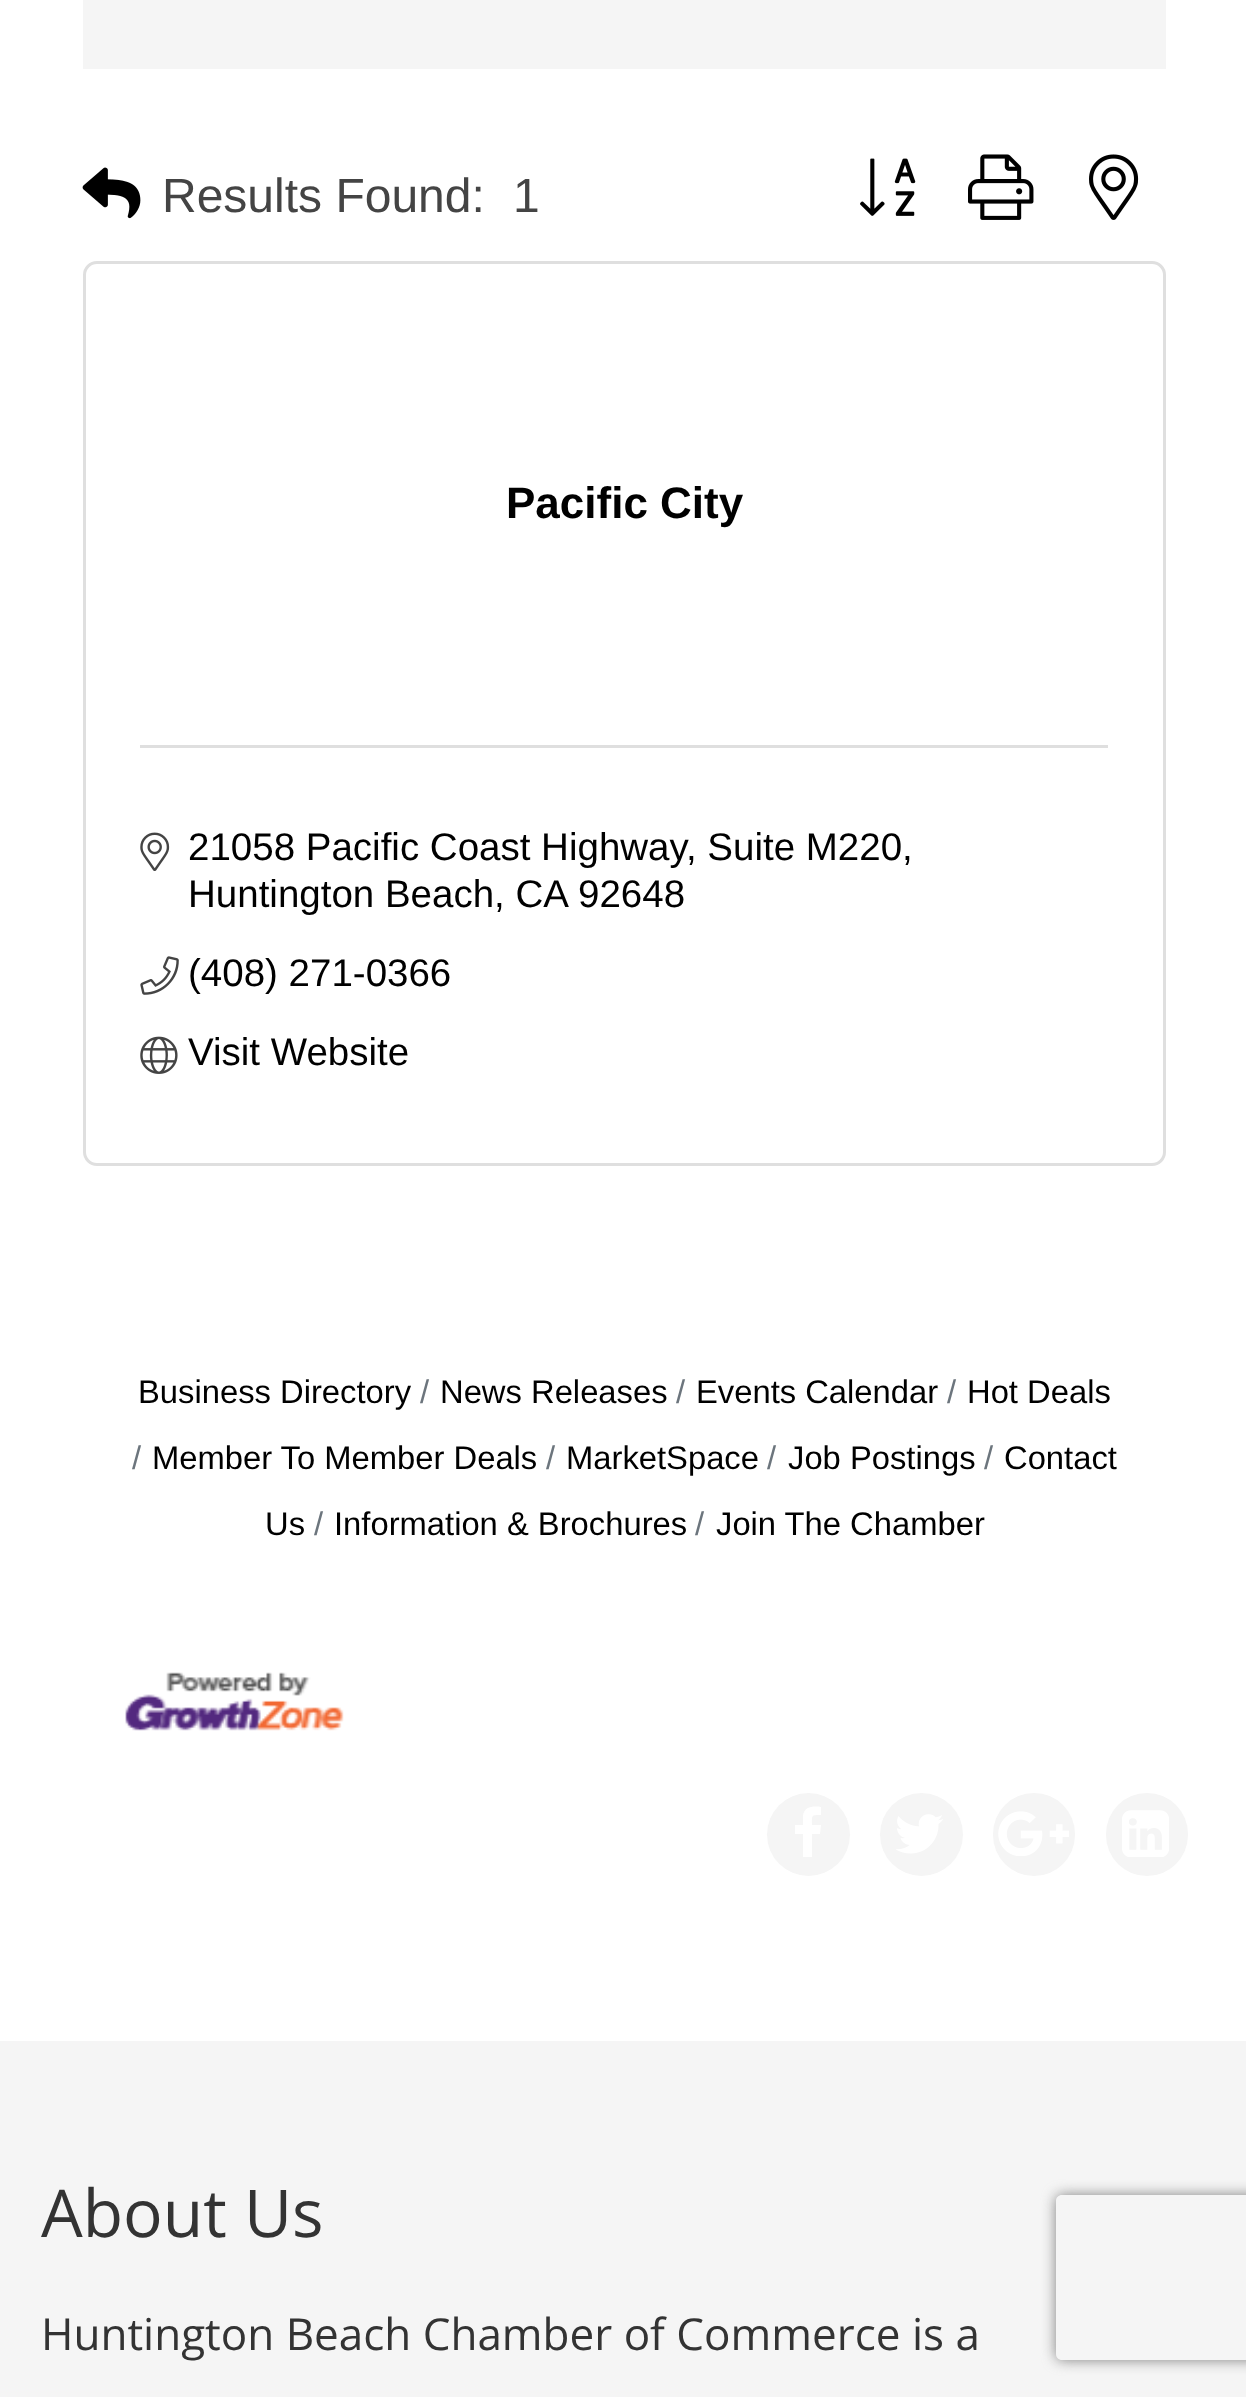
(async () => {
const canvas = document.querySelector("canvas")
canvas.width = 1246
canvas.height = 2397
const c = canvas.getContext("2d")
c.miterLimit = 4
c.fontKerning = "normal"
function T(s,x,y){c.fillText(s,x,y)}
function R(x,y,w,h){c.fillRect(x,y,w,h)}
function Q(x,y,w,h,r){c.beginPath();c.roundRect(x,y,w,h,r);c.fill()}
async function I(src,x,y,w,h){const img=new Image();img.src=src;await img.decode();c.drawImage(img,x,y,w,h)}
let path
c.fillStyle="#fff"
R(0,0,1246,2397)
c.fillStyle="#f5f5f5"
R(83,0,1083,69)
await I("1.png",82,167,59,52)
c.font="48px Liberation Sans"
c.fillStyle="#444"
T("Results Found:",162,212)
T("1",513,212)
await I("2.png",860,158,56,58)
await I("3.png",968,154,66,66)
await I("4.png",1089,154,50,66)
c.beginPath()
c.roundRect(84.5,262.5,1080,902,12.5)
c.strokeStyle="#dfdfdf"
c.lineWidth=3
c.stroke()
c.font="bold 44px Liberation Sans"
c.fillStyle="#000"
T("Pacific City",506,518)
c.fillStyle="#dfdfdf"
R(140,745,968,3)
await I("5.png",140,832,30,39)
c.font="38.5px Liberation Sans"
c.fillStyle="#000"
T("21058 Pacific Coast Highway, Suite M220,",188,860)
T("Huntington Beach, CA",188,907)
T("92648",578,907)
await I("6.png",140,956,39,39)
T("(408) 271-0366",188,986)
await I("7.png",140,1036,38,38)
T("Visit Website",188,1065)
c.font="32.75px Liberation Sans"
T("Business Directory",138,1403)
c.fillStyle="#6c757d"
T("/",420,1403)
c.fillStyle="#000"
T("News Releases",440,1403)
c.fillStyle="#6c757d"
T("/",676,1403)
c.fillStyle="#000"
T("Events Calendar",696,1403)
c.fillStyle="#6c757d"
T("/",947,1403)
c.fillStyle="#000"
T("Hot Deals",967,1403)
c.fillStyle="#6c757d"
T("/",132,1469)
c.fillStyle="#000"
T("Member To Member Deals",152,1469)
c.fillStyle="#6c757d"
T("/",984,1469)
c.fillStyle="#000"
T("Contact",1004,1469)
T("Us",265,1535)
c.fillStyle="#6c757d"
T("/",546,1469)
c.fillStyle="#000"
T("MarketSpace",566,1469)
c.fillStyle="#6c757d"
T("/",767,1469)
c.fillStyle="#000"
T("Job Postings",788,1469)
c.fillStyle="#6c757d"
T("/",314,1535)
c.fillStyle="#000"
T("Information & Brochures",334,1535)
c.fillStyle="#6c757d"
T("/",695,1535)
c.fillStyle="#000"
T("Join The Chamber",716,1535)
await I("8.png",125,1672,219,59)
c.fillStyle="#f5f5f5"
c.beginPath()
c.arc(808.5,1834.5,41.5,0,7)
c.fill()
c.fillStyle="#fff"
path = new Path2D("M821 1807v8c-10 0-9 0-9 10h9l-1 9h-8v23h-9v-23h-8v-9h8v-9c1-10 11-10 18-9z")
c.fill(path)
c.fillStyle="#f5f5f5"
c.beginPath()
c.arc(921.5,1834.5,41.5,0,7)
c.fill()
await I("9.png",896,1814,47,40)
Q(993,1793,82,83,41)
await I("10.png",998,1811,71,45)
Q(1106,1793,82,83,41)
await I("11.png",1122,1810,47,47)
R(0,2041,1246,356)
c.font="66px Open Sans"
c.fillStyle="#333"
T("About Us",41,2237)
c.font="44px Open Sans"
T("Huntington Beach Chamber of Commerce is a",41,2350)
c.save()
path = new Path2D("M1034 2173h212v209h-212zm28 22h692c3.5 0 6 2.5 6 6v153c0 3.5-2.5 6-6 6h-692c-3.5 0-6-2.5-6-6v-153c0-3.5 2.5-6 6-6z")
c.clip(path,"evenodd")
c.fillStyle="#808080"
c.filter="blur(7px)"
c.beginPath()
c.roundRect(1056,2195,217,165,6)
c.fill()
c.filter="none"
c.restore()
})()
